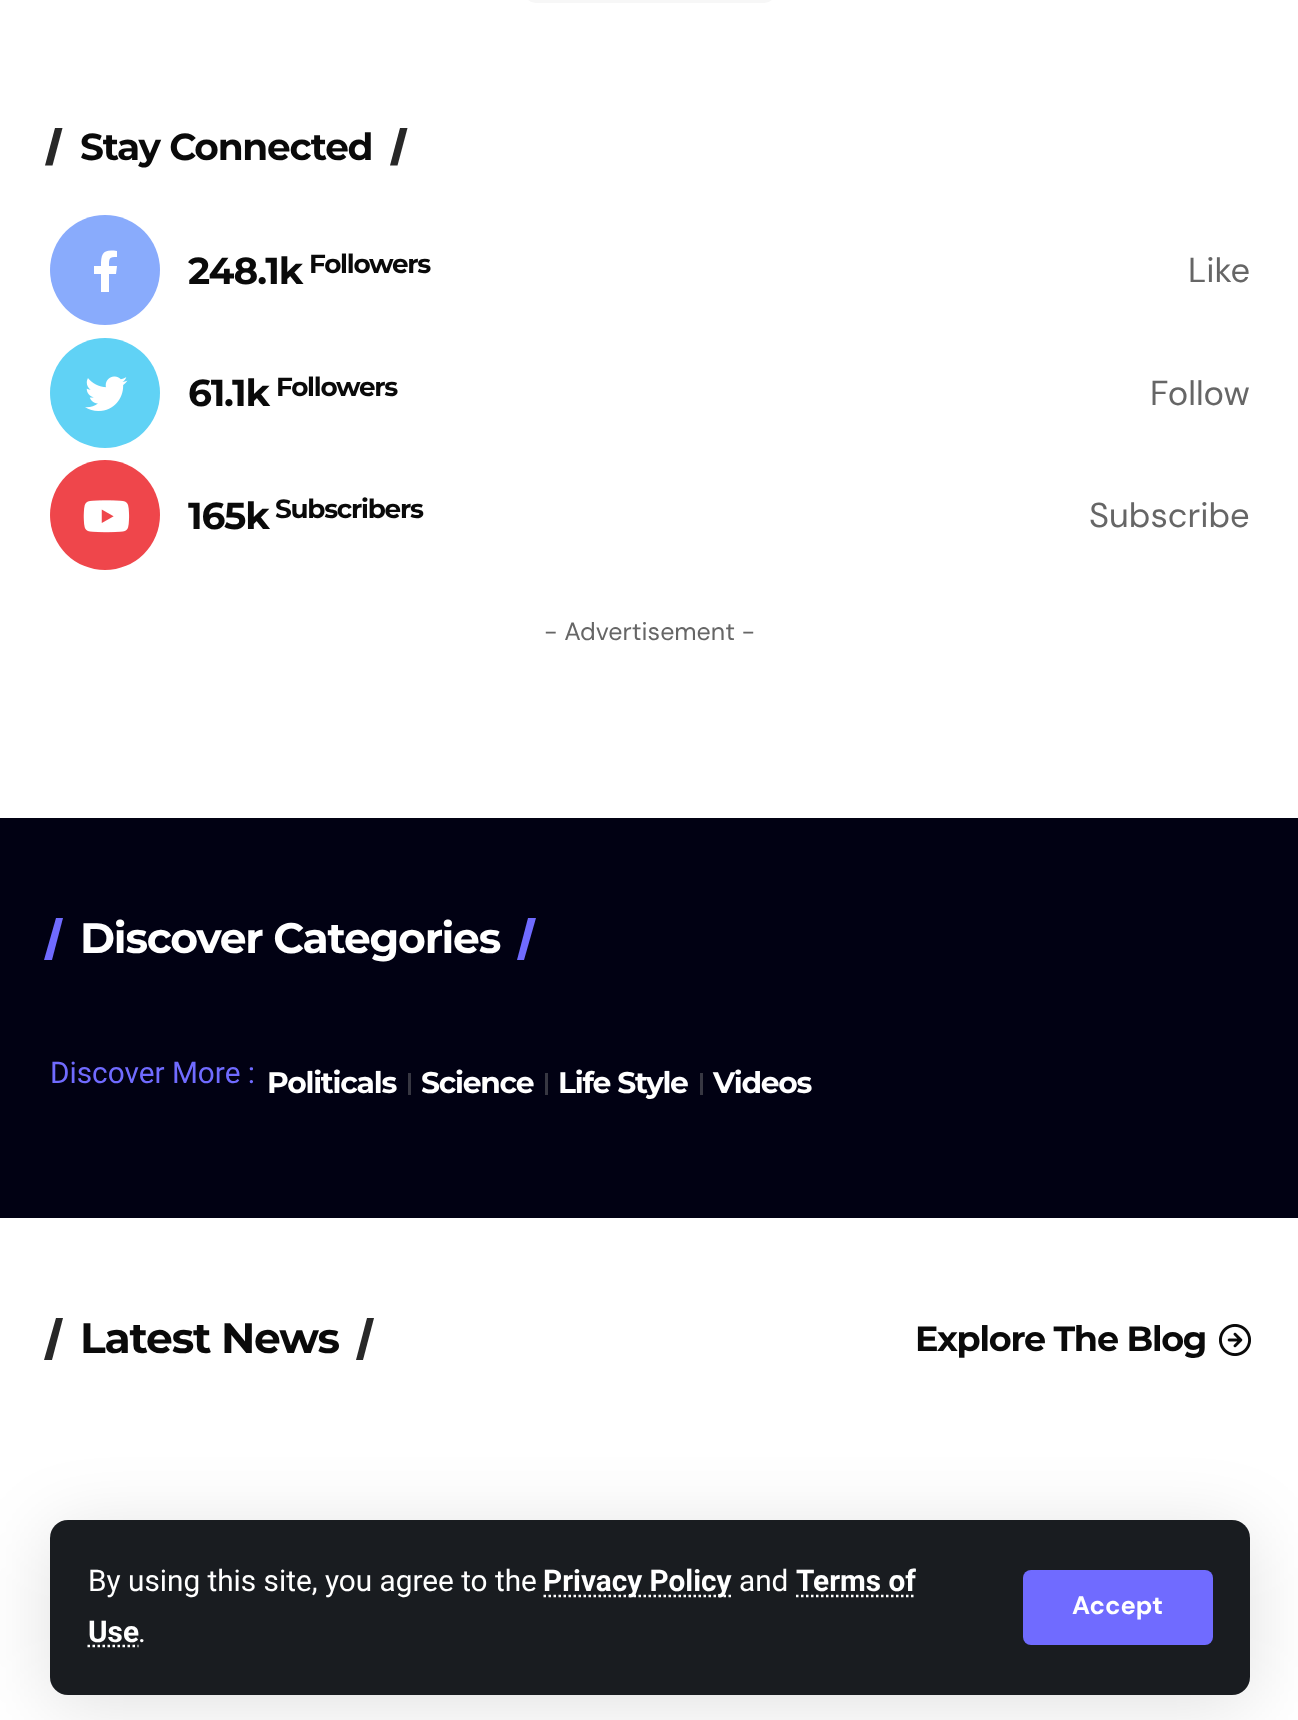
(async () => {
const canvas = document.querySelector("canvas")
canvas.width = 1298
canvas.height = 1720
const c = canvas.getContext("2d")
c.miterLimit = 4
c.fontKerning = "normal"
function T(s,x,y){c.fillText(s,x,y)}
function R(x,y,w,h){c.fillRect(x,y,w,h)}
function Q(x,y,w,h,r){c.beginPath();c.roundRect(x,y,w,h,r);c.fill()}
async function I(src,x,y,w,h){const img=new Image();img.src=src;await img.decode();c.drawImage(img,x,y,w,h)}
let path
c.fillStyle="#fff"
R(0,0,1298,1720)
c.fillStyle="#f7f7f7"
Q(525,-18,250,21,18)
c.fillStyle="#282828"
path = new Path2D("M400 128h7.5l-10 37.5h-7.5z")
c.fill(path)
path = new Path2D("M55 128h7.5l-10 37.5h-7.5z")
c.fill(path)
c.letterSpacing="-1.25px"
c.font="bold 37.5px Montserrat"
c.fillStyle="#0a0a0a"
T("Stay Connected",80,160)
c.fillStyle="#89abfc"
c.beginPath()
c.arc(105,270,55,0,7)
c.fill()
c.fillStyle="#fff"
path = new Path2D("M116 274l1-8h-8c0-8 0-9 8-9v-6c-14-2-16 2-16 15h-7v8h7v18h8v-18z")
c.fill(path)
c.fillStyle="#0a0a0a"
T("248.1k",188,284)
c.font="bold 26.25px Montserrat"
T("Followers",309,273)
c.letterSpacing="0px"
c.font="34.5px DM Sans"
c.fillStyle="#666"
T("Like",1188,282)
c.fillStyle="#60d2f5"
c.beginPath()
c.arc(105,393,55,0,7)
c.fill()
await I("1.png",85,376,43,35)
c.letterSpacing="-1.25px"
c.font="bold 37.5px Montserrat"
c.fillStyle="#0a0a0a"
T("61.1k",188,406)
c.font="bold 26.25px Montserrat"
T("Followers",276,396)
c.letterSpacing="0px"
c.font="34.5px DM Sans"
c.fillStyle="#666"
T("Follow",1150,405)
c.fillStyle="#ef464b"
c.beginPath()
c.arc(105,515,55,0,7)
c.fill()
await I("2.png",83,500,47,33)
c.letterSpacing="-1.25px"
c.font="bold 37.5px Montserrat"
c.fillStyle="#0a0a0a"
T("165k",188,529)
c.font="bold 26.25px Montserrat"
T("Subscribers",275,518)
c.letterSpacing="0px"
c.font="34.5px DM Sans"
c.fillStyle="#666"
T("Subscribe",1089,527)
c.font="25px DM Sans"
T("- Advertisement -",544,640)
c.fillStyle="#010113"
R(0,818,1298,400)
c.fillStyle="#706bff"
path = new Path2D("M528 918h8l-12 42h-7z")
c.fill(path)
path = new Path2D("M56 918h7l-11 42h-8z")
c.fill(path)
c.letterSpacing="-1.25px"
c.font="bold 42.5px Montserrat"
c.fillStyle="#fff"
T("Discover Categories",80,953)
c.letterSpacing="0px"
c.font="29.75px Roboto"
c.fillStyle="#706bff"
T("Discover More :",50,1083)
c.letterSpacing="-1.25px"
c.font="bold 29.75px Montserrat"
c.fillStyle="#fff"
T("Politicals",267,1093)
c.fillStyle="#373742"
R(408,1073,3,22)
c.fillStyle="#fff"
T("Science",421,1093)
c.fillStyle="#373742"
R(545,1073,3,22)
c.fillStyle="#fff"
T("Life Style",558,1093)
c.fillStyle="#373742"
R(700,1073,3,22)
c.fillStyle="#fff"
T("Videos",713,1093)
c.fillStyle="#282828"
path = new Path2D("M367 1318h7l-11 42h-7z")
c.fill(path)
path = new Path2D("M56 1318h7l-11 42h-8z")
c.fill(path)
c.font="bold 42.5px Montserrat"
c.fillStyle="#0a0a0a"
T("Latest News",80,1353)
c.font="bold 35px Montserrat"
T("Explore The Blog",915,1351)
await I("3.png",1219,1324,32,32)
c.fillStyle="#0000001f"
c.filter="blur(37.5px)"
c.beginPath()
c.roundRect(50,1530,1200,175,18)
c.fill()
c.filter="none"
c.fillStyle="#191c20"
Q(50,1520,1200,175,18)
c.letterSpacing="0px"
c.font="29.75px Roboto"
c.fillStyle="#fff"
T("By using this site, you agree to the",88,1591)
path = new Path2D("M543.5 1596h188.5")
c.strokeStyle="#fff"
c.lineWidth=2.5
c.setLineDash([2.5,2.5])
c.stroke(path)
c.font="bold 29.75px Roboto"
T("Privacy Policy",543,1591)
c.font="29.75px Roboto"
T("and",739,1591)
c.font="bold 29.75px Roboto"
T("Terms of",796,1591)
path = new Path2D("M796 1596h120")
c.stroke(path)
T("Use",88,1642)
path = new Path2D("M87.5 1646h51")
c.stroke(path)
c.font="29.75px Roboto"
T(".",138,1642)
c.fillStyle="#706bff"
Q(1023,1570,190,75,8)
c.font="bold 25.5px DM Sans"
c.fillStyle="#fff"
T("Accept",1072,1614)
})()
